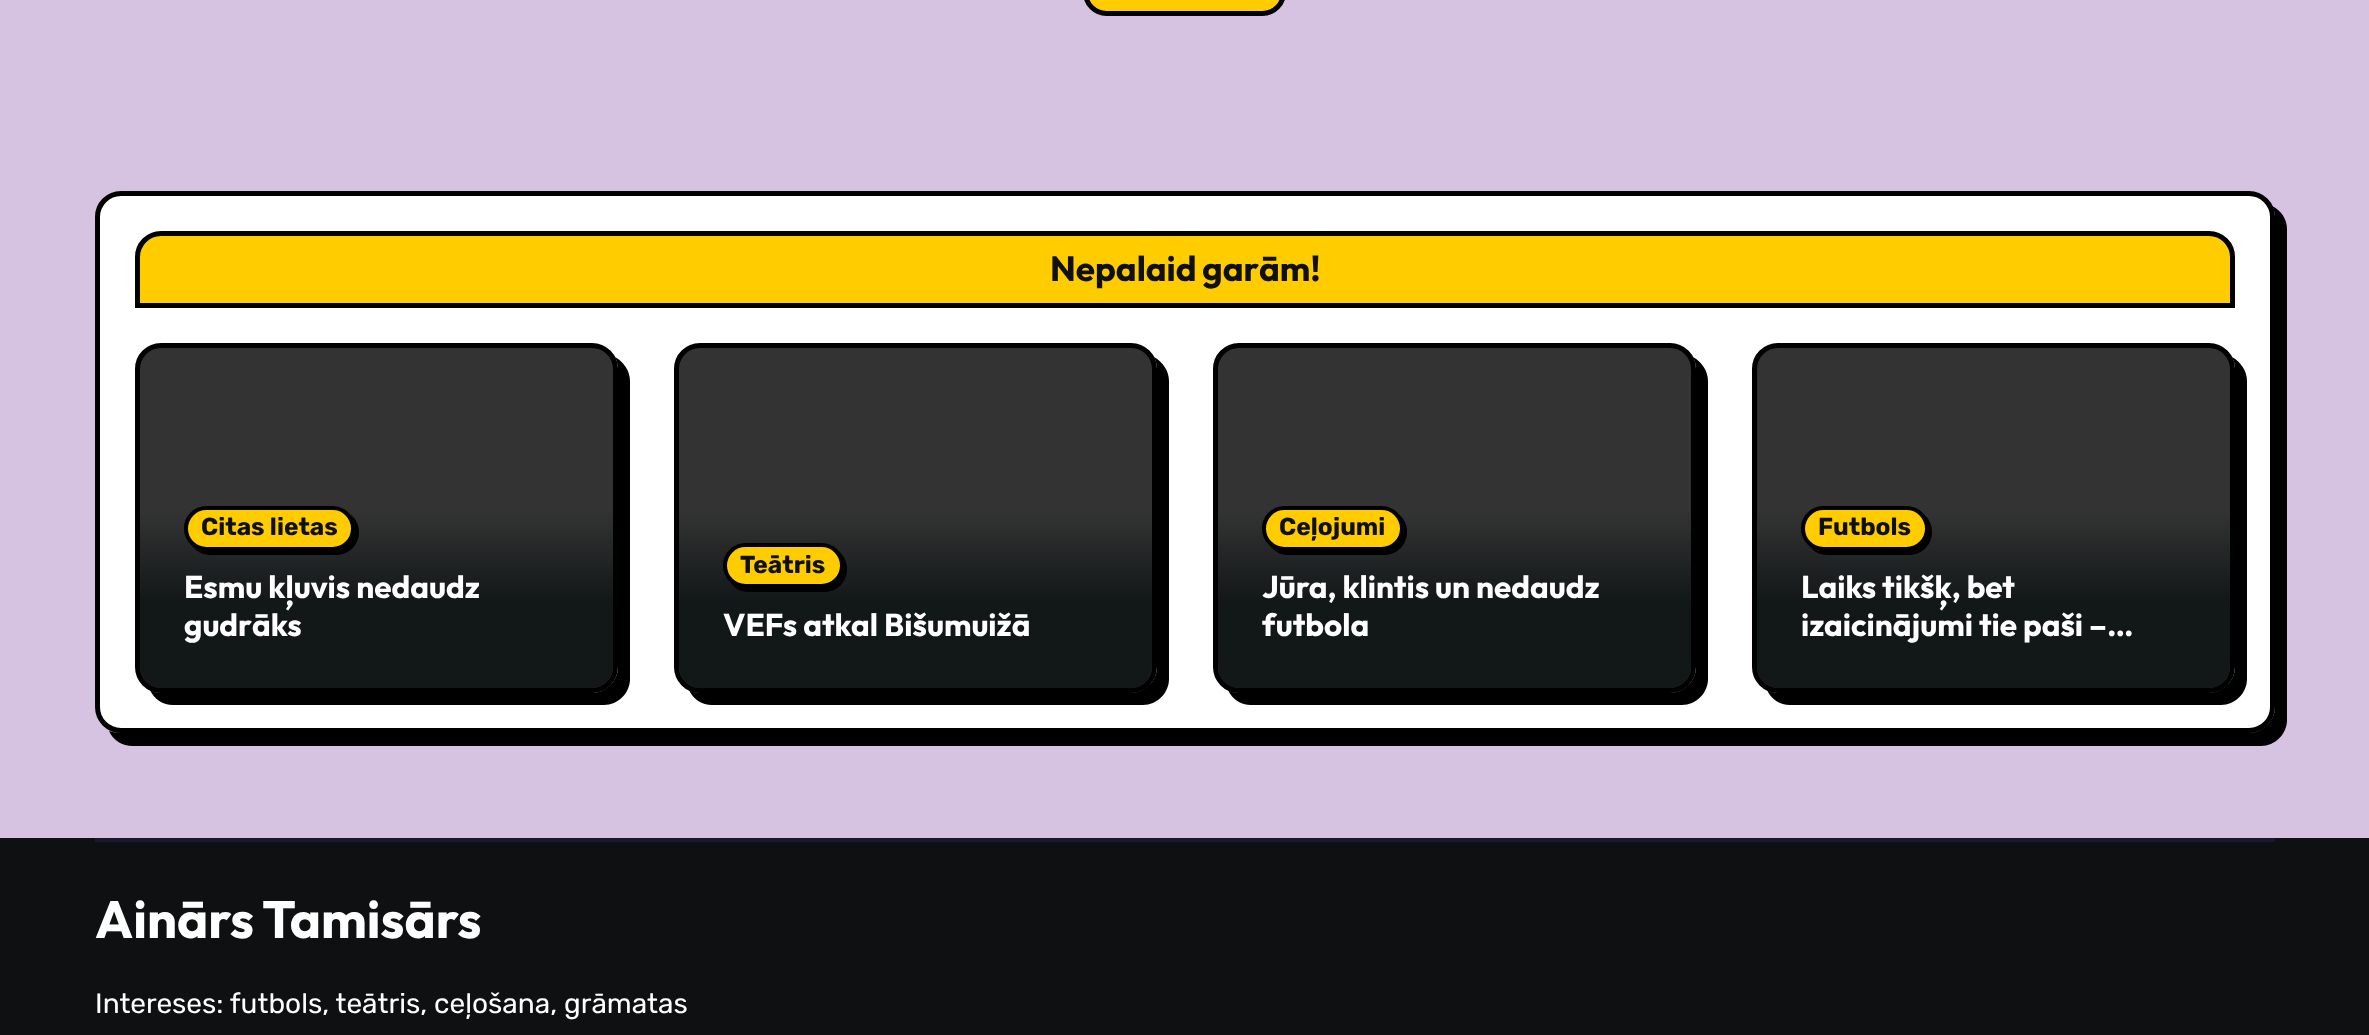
(async () => {
const canvas = document.querySelector("canvas")
canvas.width = 2369
canvas.height = 1035
const c = canvas.getContext("2d")
c.miterLimit = 4
c.fontKerning = "normal"
function T(s,x,y){c.fillText(s,x,y)}
function R(x,y,w,h){c.fillRect(x,y,w,h)}
function Q(x,y,w,h,r){c.beginPath();c.roundRect(x,y,w,h,r);c.fill()}
let gradient, path
c.fillStyle="#d6c3e2"
R(0,0,2369,1035)
c.fillStyle="#fc0"
c.beginPath()
c.roundRect(1085.5,-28.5,198,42,23.5)
c.fill()
c.strokeStyle="#000"
c.lineWidth=5
c.stroke()
c.fillStyle="#000"
path = new Path2D("M109 731c4 9 13 15 24 15h2128c14 0 26-12 26-26v-491c0-10-6-19-15-23c2 3 3 7 3 11v490c0 14-12 26-26 26h-2128c-4 0-8-1-12-2z")
c.fill(path)
c.fillStyle="#fff"
c.beginPath()
c.roundRect(97.5,193.5,2175,537,23.5)
c.fill()
c.stroke()
c.fillStyle="#fc0"
c.beginPath()
c.roundRect(137.5,233.5,2095,72,[23.5,23.5,0,0])
c.fill()
c.stroke()
c.wordSpacing="-1px"
c.font="bold 35px Outfit"
c.fillStyle="#0f1012"
T("Nepalaid garām!",1050,281)
c.fillStyle="#000"
path = new Path2D("M150 690c4 9 13 15 23 15h431c14 0 26-12 26-26v-298c0-10-6-19-15-24c2 4 3 8 3 12v298c0 14-12 26-26 26h-431c-4 0-8-1-11-3z")
c.fill(path)
c.fillStyle="#333"
c.beginPath()
c.roundRect(137.5,345.5,478,345,23.5)
c.fill()
c.stroke()
gradient = c.createLinearGradient(376,348,376,688)
gradient.addColorStop(.48,"#12171800")
gradient.addColorStop(.75,"#121718")
c.fillStyle = gradient
Q(140,348,473,340,21)
c.fillStyle="#000"
path = new Path2D("M191 545c5 6 11 10 19 10h126c13 0 23-10 23-23c0-8-4-14-10-19c4 4 6 10 6 15c0 13-10 23-23 23h-126c-5 0-11-2-15-6z")
c.fill(path)
c.fillStyle="#fc0"
c.beginPath()
c.roundRect(186,508,167,41,20.5)
c.fill()
c.lineWidth=4
c.stroke()
c.wordSpacing="0px"
c.font="bold 24.5px Rubik"
c.fillStyle="#0f1012"
T("Citas lietas",201,535)
c.font="bold 31.5px Outfit"
c.fillStyle="#fff"
T("Esmu kļuvis nedaudz",184,598)
T("gudrāks",184,636)
c.fillStyle="#000"
path = new Path2D("M689 690c4 9 13 15 23 15h431c14 0 26-12 26-26v-298c0-10-6-19-15-24c2 4 3 8 3 12v298c0 14-12 26-27 26h-430c-4 0-8-1-11-3z")
c.fill(path)
c.fillStyle="#333"
c.beginPath()
c.roundRect(676.5,345.5,478,345,23.5)
c.fill()
c.lineWidth=5
c.stroke()
gradient = c.createLinearGradient(915,348,915,688)
gradient.addColorStop(.48,"#12171800")
gradient.addColorStop(.75,"#121718")
c.fillStyle = gradient
Q(679,348,473,340,21)
c.fillStyle="#000"
path = new Path2D("M730 582c4 6 11 10 19 10h75c13 0 23-10 23-23c0-7-3-13-8-18c3 4 5 9 5 14c0 13-11 23-23 23h-75c-7 0-12-2-16-6z")
c.fill(path)
c.fillStyle="#fc0"
c.beginPath()
c.roundRect(725,545,117,41,20.5)
c.fill()
c.lineWidth=4
c.stroke()
c.font="bold 24.5px Rubik"
c.fillStyle="#0f1012"
T("Teātris",740,573)
c.font="bold 31.5px Outfit"
c.fillStyle="#fff"
T("VEFs atkal Bišumuižā",723,636)
c.fillStyle="#000"
path = new Path2D("M1228 690c4 9 13 15 23 15h431c14 0 26-12 26-26v-298c0-10-6-19-15-24c2 4 3 8 3 12v298c0 14-12 26-26 26h-431c-4 0-8-1-11-3z")
c.fill(path)
c.fillStyle="#333"
c.beginPath()
c.roundRect(1215.5,345.5,478,345,23.5)
c.fill()
c.lineWidth=5
c.stroke()
gradient = c.createLinearGradient(1454,348,1454,688)
gradient.addColorStop(.48,"#12171800")
gradient.addColorStop(.75,"#121718")
c.fillStyle = gradient
Q(1218,348,473,340,21)
c.fillStyle="#000"
path = new Path2D("M1269 545c5 6 11 10 19 10h96c13 0 23-10 23-23c0-7-3-14-9-18c4 4 6 9 6 14c0 13-11 23-23 23h-97c-5 0-11-2-15-6z")
c.fill(path)
c.fillStyle="#fc0"
c.beginPath()
c.roundRect(1264,508,138,41,20.5)
c.fill()
c.lineWidth=4
c.stroke()
c.font="bold 24.5px Rubik"
c.fillStyle="#0f1012"
T("Ceļojumi",1279,535)
c.font="bold 31.5px Outfit"
c.fillStyle="#fff"
T("Jūra, klintis un nedaudz",1262,598)
T("futbola",1262,636)
c.fillStyle="#000"
path = new Path2D("M1767 690c4 9 13 15 23 15h431c14 0 26-12 26-26v-298c0-10-6-19-15-24c2 4 3 8 3 12v298c0 14-12 26-27 26h-430c-4 0-8-1-11-3z")
c.fill(path)
c.fillStyle="#333"
c.beginPath()
c.roundRect(1754.5,345.5,478,345,23.5)
c.fill()
c.lineWidth=5
c.stroke()
gradient = c.createLinearGradient(1993,348,1993,688)
gradient.addColorStop(.48,"#12171800")
gradient.addColorStop(.75,"#121718")
c.fillStyle = gradient
Q(1757,348,473,340,21)
c.fillStyle="#000"
path = new Path2D("M1808 545c5 6 11 10 19 10h82c13 0 23-10 23-23c0-7-3-14-9-18c4 4 5 9 5 14c0 13-10 23-22 23h-82c-6 0-12-2-16-6z")
c.fill(path)
c.fillStyle="#fc0"
c.beginPath()
c.roundRect(1803,508,124,41,20.5)
c.fill()
c.lineWidth=4
c.stroke()
c.font="bold 24.5px Rubik"
c.fillStyle="#0f1012"
T("Futbols",1818,535)
c.font="bold 31.5px Outfit"
c.fillStyle="#fff"
T("Laiks tikšķ, bet",1801,598)
T("izaicinājumi tie paši –…",1801,636)
c.fillStyle="#0f1012"
R(0,838,2369,197)
c.fillStyle="#1a182e"
R(95,838,2180,4)
c.wordSpacing="-1px"
c.font="bold 52.5px Outfit"
c.fillStyle="#fff"
T("Ainārs Tamisārs",95,938)
c.wordSpacing="0px"
c.font="300 28px Rubik"
T("Intereses: futbols, teātris, ceļošana, grāmatas",95,1013)
})()
